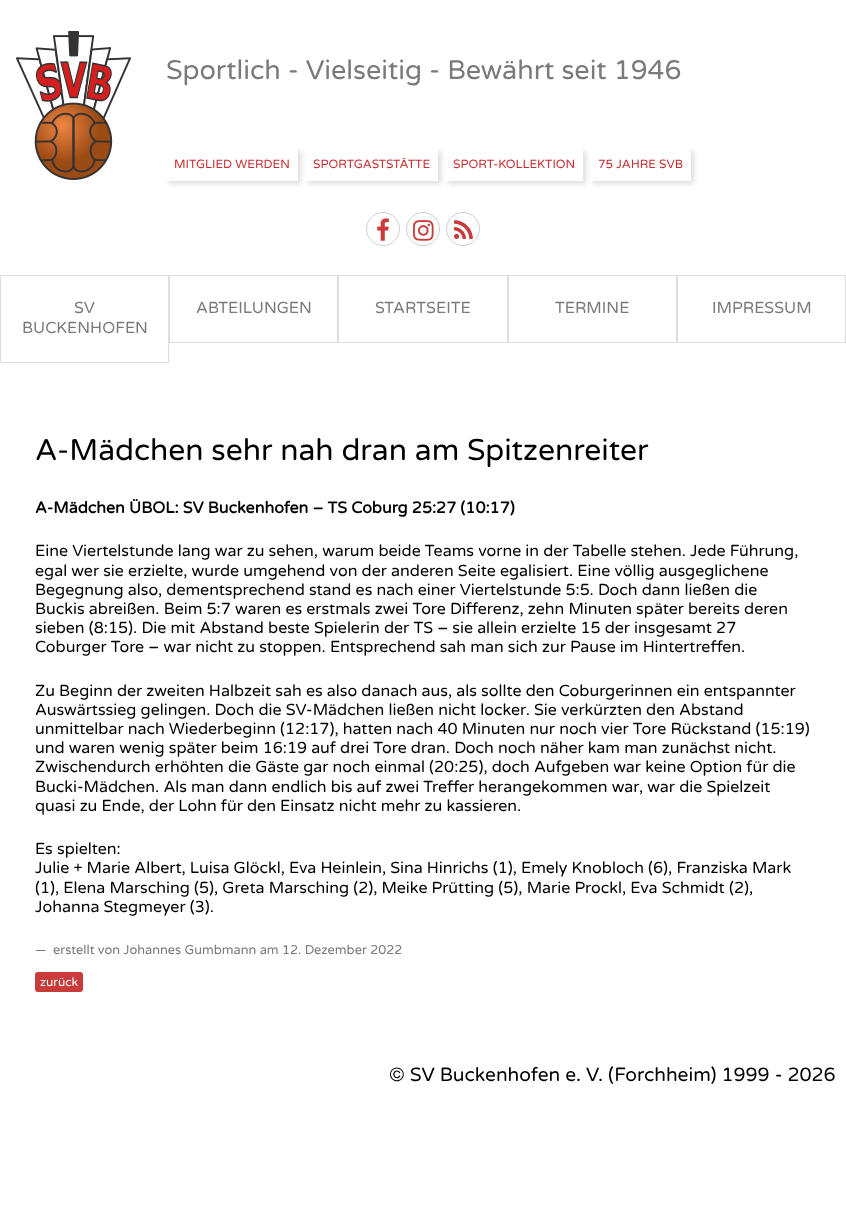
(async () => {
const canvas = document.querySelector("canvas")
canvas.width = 846
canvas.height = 1206
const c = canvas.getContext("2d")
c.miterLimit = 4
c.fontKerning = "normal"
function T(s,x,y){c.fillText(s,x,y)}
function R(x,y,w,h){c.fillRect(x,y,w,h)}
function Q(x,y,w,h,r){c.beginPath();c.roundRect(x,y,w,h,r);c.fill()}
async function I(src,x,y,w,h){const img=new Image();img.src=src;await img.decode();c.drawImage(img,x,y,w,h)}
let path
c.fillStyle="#fff"
R(0,0,846,1206)
await I("1.png",16,31,115,149)
c.font="27px Varela Round"
c.fillStyle="#7a7a7a"
T("Sportlich - Vielseitig - Bewährt seit 1946",166,79)
c.save()
path = new Path2D("M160 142h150v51h-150zm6 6h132v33h-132z")
c.clip(path,"evenodd")
c.fillStyle="#dedede"
c.filter="blur(2.5px)"
c.beginPath()
c.rect(169,151,132,33)
c.fill()
c.filter="none"
c.restore()
c.font="12px Varela Round"
c.fillStyle="#c62d31"
T("MITGLIED WERDEN",174,168)
c.save()
path = new Path2D("M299 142h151v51h-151zm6 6h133v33h-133z")
c.clip(path,"evenodd")
c.fillStyle="#dedede"
c.filter="blur(2.5px)"
c.beginPath()
c.rect(308,151,133,33)
c.fill()
c.filter="none"
c.restore()
T("SPORTGASTSTÄTTE",313,168)
c.save()
path = new Path2D("M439 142h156v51h-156zm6 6h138v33h-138z")
c.clip(path,"evenodd")
c.fillStyle="#dedede"
c.filter="blur(2.5px)"
c.beginPath()
c.rect(448,151,138,33)
c.fill()
c.filter="none"
c.restore()
T("SPORT-KOLLEKTION",453,168)
c.save()
path = new Path2D("M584 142h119v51h-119zm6 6h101v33h-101z")
c.clip(path,"evenodd")
c.fillStyle="#dedede"
c.filter="blur(2.5px)"
c.beginPath()
c.rect(593,151,101,33)
c.fill()
c.filter="none"
c.restore()
T("75 JAHRE SVB",598,168)
c.beginPath()
c.arc(383,229,16.5,0,7)
c.strokeStyle="#cfcfcf"
c.stroke()
await I("2.png",377,218,12,23)
c.beginPath()
c.arc(423,229,16.5,0,7)
c.stroke()
await I("3.png",413,220,21,21)
c.beginPath()
c.arc(463,229,16.5,0,7)
c.stroke()
await I("4.png",454,220,19,19)
c.strokeStyle="#dedede"
c.strokeRect(.5,275.5,168,87)
c.font="16px Varela Round"
c.fillStyle="#7a7a7a"
T("SV",74,313)
T("BUCKENHOFEN",22,333)
c.strokeRect(169.5,275.5,168,67)
T("ABTEILUNGEN",196,313)
c.strokeRect(338.5,275.5,169,67)
T("STARTSEITE",375,313)
c.strokeRect(508.5,275.5,168,67)
T("TERMINE",555,313)
c.strokeRect(677.5,275.5,168,67)
T("IMPRESSUM",712,313)
c.font="30px Varela Round"
c.fillStyle="#000"
T("A-Mädchen sehr nah dran am Spitzenreiter",35,460)
c.font="bold 16px Varela Round"
T("A-Mädchen ÜBOL: SV Buckenhofen – TS Coburg 25:27 (10:17)",35,513)
c.font="16px Varela Round"
T("Eine Viertelstunde lang war zu sehen, warum beide Teams vorne in der Tabelle stehen. Jede Führung,",35,556)
T("egal wer sie erzielte, wurde umgehend von der anderen Seite egalisiert. Eine völlig ausgeglichene",35,576)
T("Begegnung also, dementsprechend stand es nach einer Viertelstunde 5:5. Doch dann ließen die",35,595)
T("Buckis abreißen. Beim 5:7 waren es erstmals zwei Tore Differenz, zehn Minuten später bereits deren",35,614)
T("sieben (8:15). Die mit Abstand beste Spielerin der TS – sie allein erzielte 15 der insgesamt 27",35,633)
T("Coburger Tore – war nicht zu stoppen. Entsprechend sah man sich zur Pause im Hintertreffen.",35,652)
T("Zu Beginn der zweiten Halbzeit sah es also danach aus, als sollte den Coburgerinnen ein entspannter",35,696)
T("Auswärtssieg gelingen. Doch die SV-Mädchen ließen nicht locker. Sie verkürzten den Abstand",35,715)
T("unmittelbar nach Wiederbeginn (12:17), hatten nach 40 Minuten nur noch vier Tore Rückstand (15:19)",35,734)
T("und waren wenig später beim 16:19 auf drei Tore dran. Doch noch näher kam man zunächst nicht.",35,753)
T("Zwischendurch erhöhten die Gäste gar noch einmal (20:25), doch Aufgeben war keine Option für die",35,772)
T("Bucki-Mädchen. Als man dann endlich bis auf zwei Treffer herangekommen war, war die Spielzeit",35,792)
T("quasi zu Ende, der Lohn für den Einsatz nicht mehr zu kassieren.",35,811)
T("Es spielten:",35,854)
T("Julie + Marie Albert, Luisa Glöckl, Eva Heinlein, Sina Hinrichs (1), Emely Knobloch (6), Franziska Mark",35,873)
T("(1), Elena Marsching (5), Greta Marsching (2), Meike Prütting (5), Marie Prockl, Eva Schmidt (2),",35,893)
T("Johanna Stegmeyer (3).",35,912)
c.font="12.8px Varela Round"
c.fillStyle="#7a7a7a"
T("—",35,954)
T("erstellt von Johannes Gumbmann am 12. Dezember 2022",53,954)
c.fillStyle="#c93a3a"
Q(35,972,48,20,3)
c.font="12px Varela Round"
c.fillStyle="#fff"
T("zurück",40,986)
c.font="19.2px Varela Round"
c.fillStyle="#000"
T("© SV Buckenhofen e. V. (Forchheim) 1999 - 2026",389,1081)
})()
